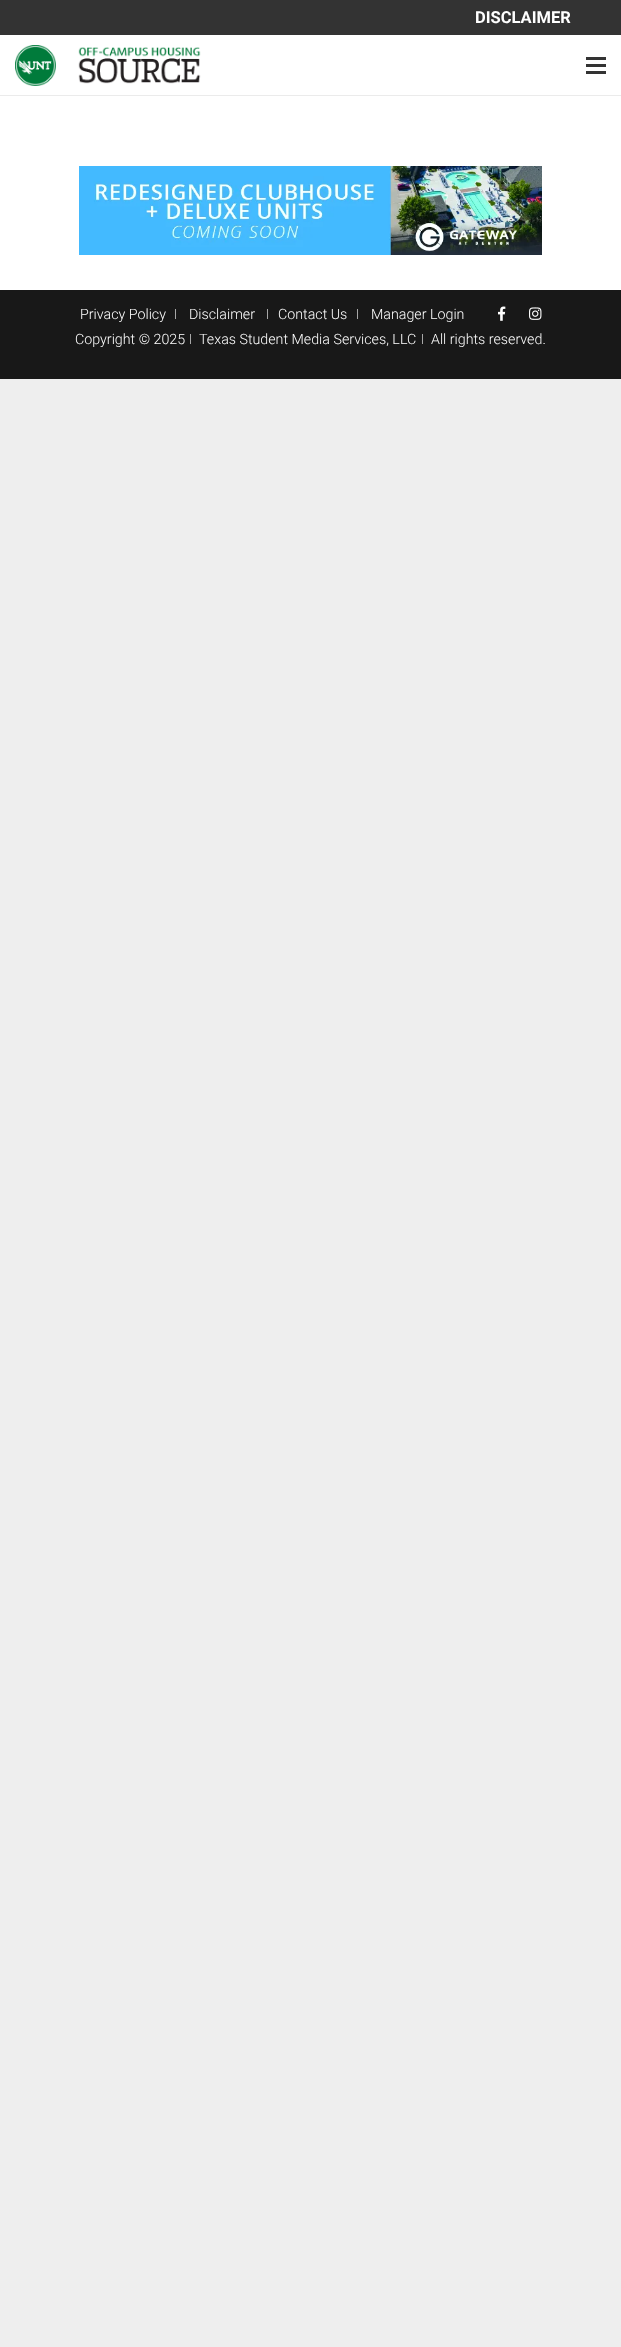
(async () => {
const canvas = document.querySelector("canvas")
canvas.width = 621
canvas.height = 2347
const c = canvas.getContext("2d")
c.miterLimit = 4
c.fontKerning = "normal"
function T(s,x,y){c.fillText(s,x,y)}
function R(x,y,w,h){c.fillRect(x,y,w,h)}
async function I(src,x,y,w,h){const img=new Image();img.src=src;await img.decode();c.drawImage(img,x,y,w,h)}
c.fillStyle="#eee"
R(0,0,621,2347)
c.fillStyle="#fff"
R(0,96,621,194)
c.fillStyle="#333"
R(0,0,621,35)
c.font="bold 16.5px Roboto"
c.fillStyle="#fff"
T("DISCLAIMER",475,23)
c.fillStyle="#ebebeb"
R(0,95,621,1)
c.fillStyle="#fff"
R(0,35,621,60)
await I("1.png",15,45,41,41)
await I("2.png",78,47,123,37)
c.fillStyle="#333"
R(586,64,20,3)
R(586,57,20,3)
R(586,71,20,3)
await I("3.png",79,166,463,89)
c.fillStyle="#181818"
R(0,290,621,89)
c.font="300 14.25px Roboto"
c.fillStyle="#fff"
T("Privacy Policy",80,319)
c.fillStyle="#a7a7a7"
R(175,309,1,10)
c.fillStyle="#fff"
T("Disclaimer",189,319)
c.fillStyle="#a7a7a7"
R(267,309,1,10)
c.fillStyle="#fff"
T("Contact Us",278,319)
c.fillStyle="#a7a7a7"
R(357,309,1,10)
c.fillStyle="#fff"
T("Manager Login",371,319)
await I("4.png",498,306,8,15)
await I("5.png",529,307,13,13)
T("Copyright © 2025",75,344)
c.fillStyle="#a7a7a7"
R(190,334,1,10)
c.fillStyle="#fff"
T("Texas Student Media Services, LLC",199,344)
c.fillStyle="#a7a7a7"
R(422,334,1,10)
c.fillStyle="#fff"
T("All rights reserved.",431,344)
})()
